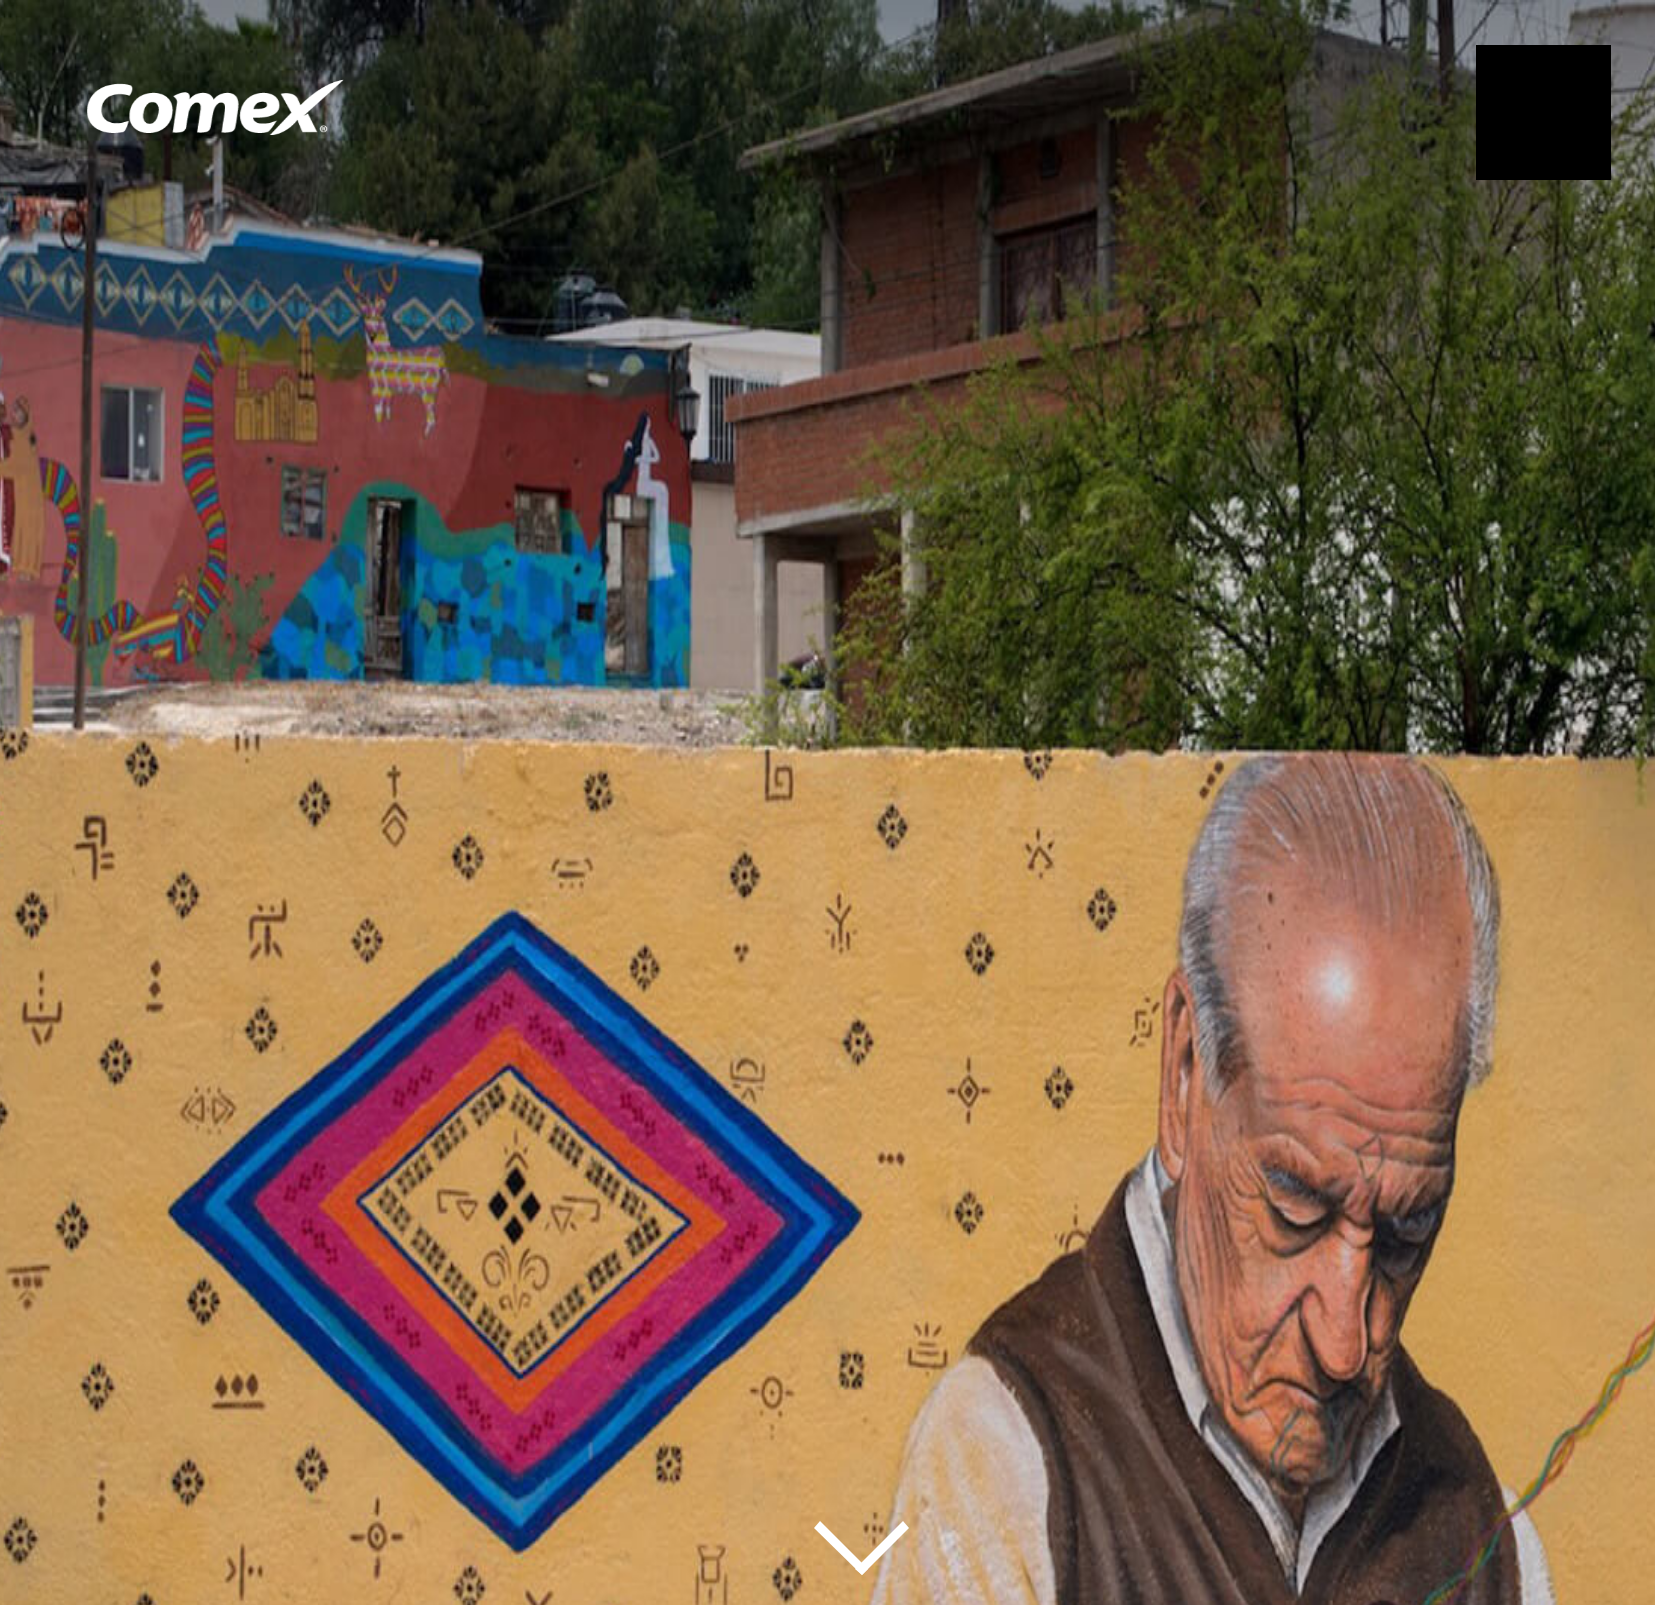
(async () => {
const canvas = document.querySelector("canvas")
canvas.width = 1655
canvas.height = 1605
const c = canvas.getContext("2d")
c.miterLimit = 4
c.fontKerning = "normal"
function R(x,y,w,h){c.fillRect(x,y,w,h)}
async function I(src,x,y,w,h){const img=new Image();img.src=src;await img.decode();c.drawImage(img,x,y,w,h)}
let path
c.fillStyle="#fff"
R(0,0,1655,1605)
await I("1.png",0,0,1655,1605)
path = new Path2D("M855 1569l48-48l6 7l-47 47z")
c.fill(path)
path = new Path2D("M814 1528l6-7l48 48l-6 6z")
c.fill(path)
await I("2.png",87,79,257,56)
c.fillStyle="#000"
R(1476,45,135,135)
})()
